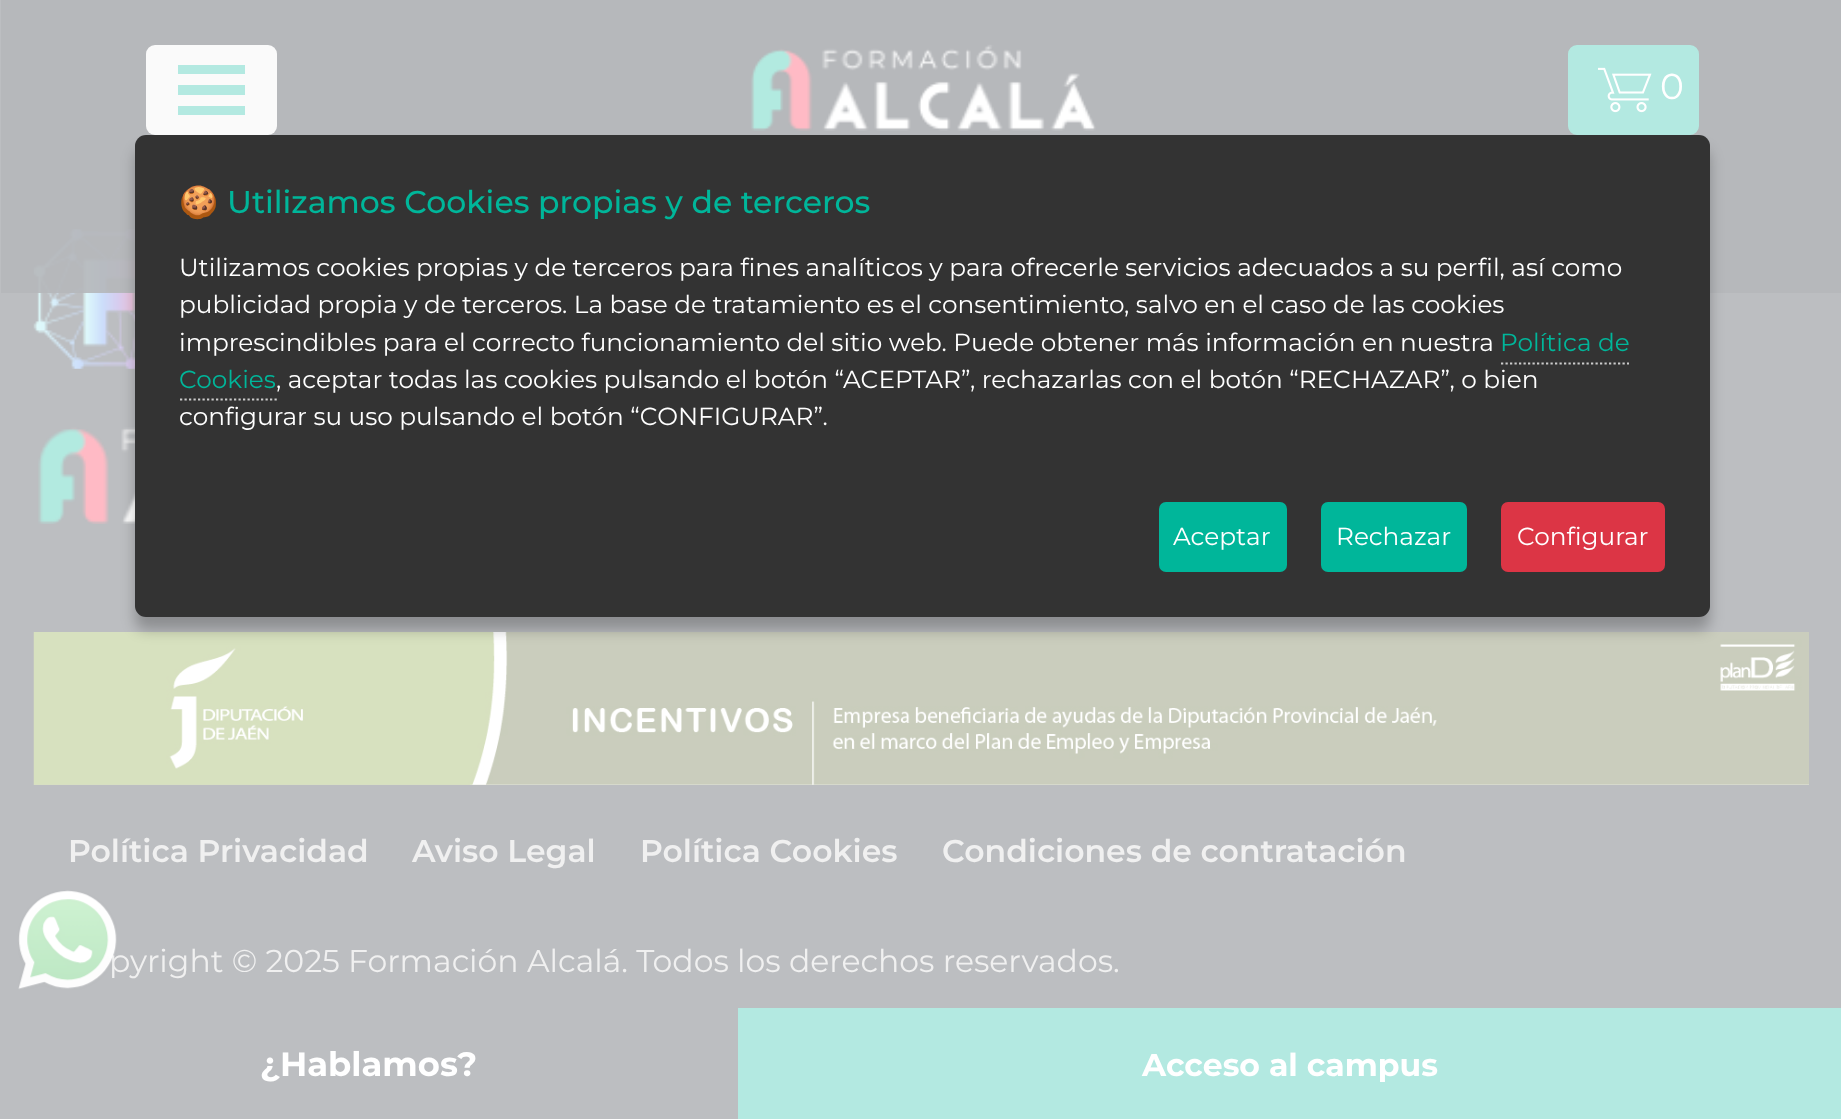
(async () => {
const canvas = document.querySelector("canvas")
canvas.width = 1841
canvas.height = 1119
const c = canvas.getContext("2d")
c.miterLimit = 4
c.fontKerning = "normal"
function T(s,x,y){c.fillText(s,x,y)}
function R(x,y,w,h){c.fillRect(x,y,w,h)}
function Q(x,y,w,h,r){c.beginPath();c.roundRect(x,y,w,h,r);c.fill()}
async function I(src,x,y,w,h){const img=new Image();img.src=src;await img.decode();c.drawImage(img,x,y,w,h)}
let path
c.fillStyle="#bcbec1"
R(0,0,1841,1119)
await I("4.png",33,229,102,140)
c.fillStyle="#b5b7bae6"
R(1,0,1840,293)
c.fillStyle="#fafafa"
Q(146,45,131,90,9)
c.fillStyle="#b3e9e1"
R(178,65,67,9)
R(178,85,67,10)
R(178,106,67,9)
await I("1.png",750,44,346,87)
c.beginPath()
c.roundRect(1569,46,129,88,8)
c.fill()
c.strokeStyle="#b3e9e1"
c.lineWidth=2
c.stroke()
await I("2.png",1598,67,54,46)
c.font="36px Montserrat"
c.fillStyle="#fff"
T("0",1660,99)
await I("5.png",38,427,97,97)
await I("6.png",33,632,1776,153)
c.fillStyle="#00000040"
c.filter="blur(7px)"
c.beginPath()
c.roundRect(135,149,1575,481,11)
c.fill()
c.filter="none"
c.fillStyle="#333"
Q(135,135,1575,482,11)
c.font="31.5px Noto Color Emoji"
c.fillStyle="#00b69a"
T("🍪",179,213)
c.font="500 31.5px Montserrat"
T("Utilizamos Cookies propias y de terceros",227,213)
c.font="24.75px Montserrat"
c.fillStyle="#fff"
T("Utilizamos cookies propias y de terceros para fines analíticos y para ofrecerle servicios adecuados a su perfil, así como",179,276)
T("publicidad propia y de terceros. La base de tratamiento es el consentimiento, salvo en el caso de las cookies",179,313)
T("imprescindibles para el correcto funcionamiento del sitio web. Puede obtener más información en nuestra",179,351)
c.fillStyle="#00b69a"
T("Política de",1500,351)
path = new Path2D("M1501 363.5h128")
c.strokeStyle="#ccc"
c.lineWidth=2.2
c.setLineDash([2.25,2.25])
c.stroke(path)
T("Cookies",179,388)
path = new Path2D("M180 399.5h97")
c.stroke(path)
c.fillStyle="#fff"
T(", aceptar todas las cookies pulsando el botón “ACEPTAR”, rechazarlas con el botón “RECHAZAR”, o bien",276,388)
T("configurar su uso pulsando el botón “CONFIGURAR”.",179,425)
c.fillStyle="#00b69a"
Q(1159,502,128,70,7)
c.fillStyle="#fff"
T("Aceptar",1173,545)
c.fillStyle="#00b69a"
Q(1321,502,146,70,7)
c.fillStyle="#fff"
T("Rechazar",1336,545)
c.fillStyle="#dc3545"
Q(1501,502,164,70,7)
c.fillStyle="#fff"
T("Configurar",1517,545)
c.font="31.5px Montserrat"
c.fillStyle="#f0f0f0"
T("pyright © 2025 Formación Alcalá. Todos los derechos reservados.",109,972)
await I("3.png",18,890,99,100)
c.font="600 31.5px Montserrat"
T("Política Privacidad",68,862)
T("Aviso Legal",412,862)
T("Política Cookies",640,862)
T("Condiciones de contratación",942,862)
c.font="bold 33.75px Montserrat"
c.fillStyle="#fff"
T("¿Hablamos?",260,1076)
c.fillStyle="#b3e9e1"
R(738,1008,1103,111)
c.font="bold 31.5px Montserrat"
c.fillStyle="#fff"
T("Acceso al campus",1142,1076)
})()
